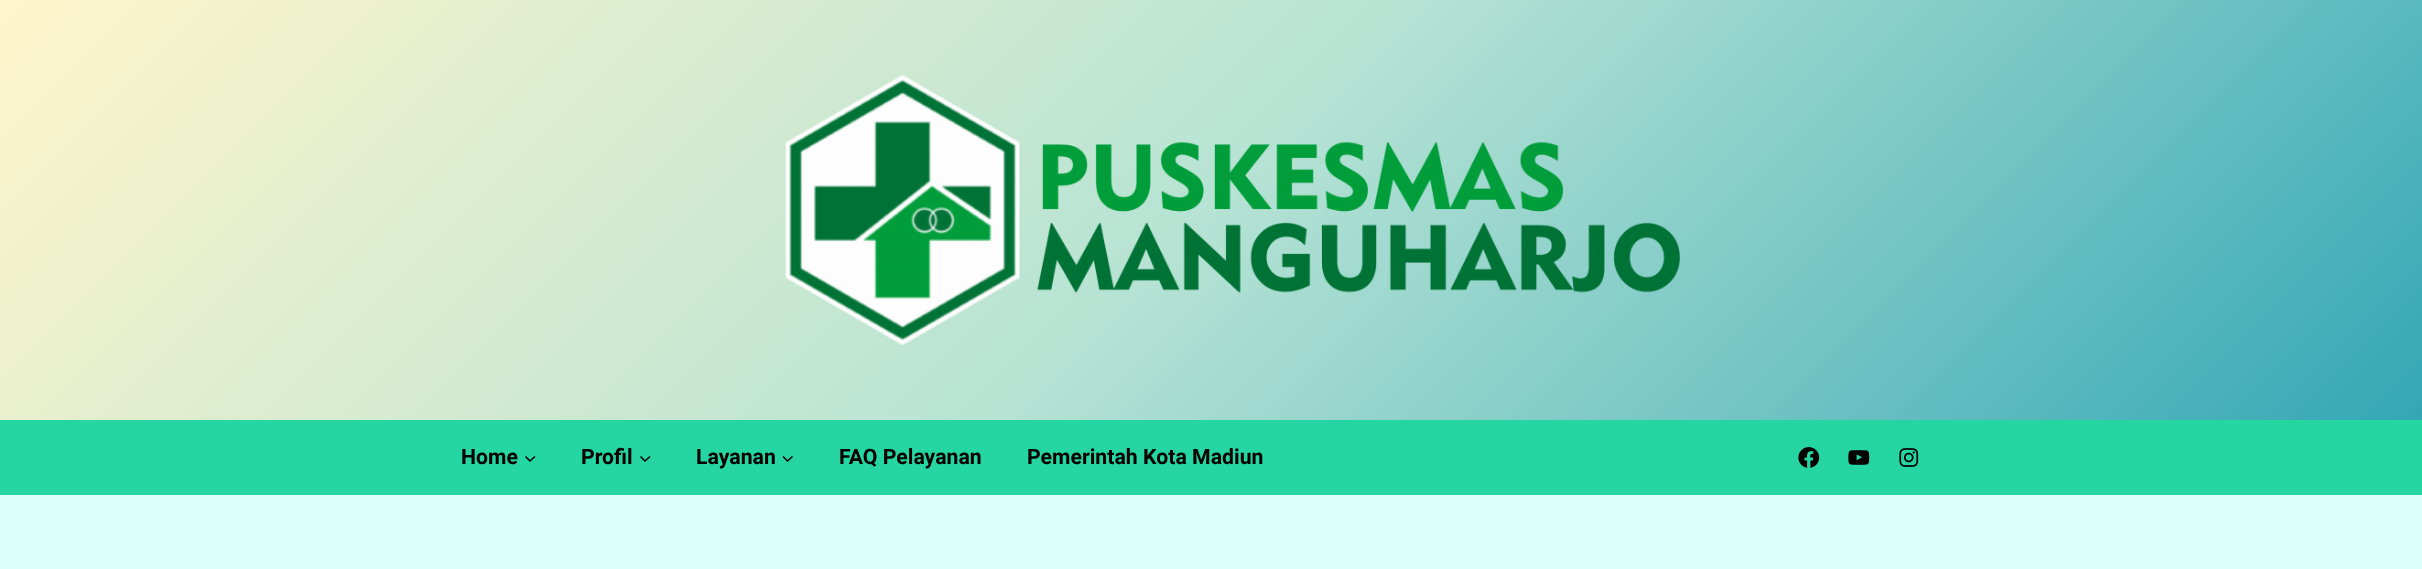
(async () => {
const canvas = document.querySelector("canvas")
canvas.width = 2422
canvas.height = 569
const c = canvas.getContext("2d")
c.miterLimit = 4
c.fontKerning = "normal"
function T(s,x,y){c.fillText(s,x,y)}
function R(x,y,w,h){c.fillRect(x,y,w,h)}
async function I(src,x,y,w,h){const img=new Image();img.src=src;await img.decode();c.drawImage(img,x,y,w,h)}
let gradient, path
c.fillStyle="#fff"
R(0,0,2422,569)
gradient = c.createLinearGradient(501,-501,1922,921)
gradient.addColorStop(0,"#fff5cb")
gradient.addColorStop(.5,"#b6e3d4")
gradient.addColorStop(1,"#33a7b5")
c.fillStyle = gradient
R(0,0,2422,420)
await I("1.png",785,75,895,270)
c.fillStyle="#25d6a2"
R(0,420,2422,75)
c.font="bold 21.25px Roboto"
c.fillStyle="#000"
T("Home",461,464)
path = new Path2D("M525.5 456.5l4.5 4.5l5-4.5")
c.strokeStyle="#000"
c.lineWidth=1.6
c.stroke(path)
T("Profil",581,464)
path = new Path2D("M640.5 456.5l4.5 4.5l5-4.5")
c.stroke(path)
T("Layanan",696,464)
path = new Path2D("M783 456.5l4.5 4.5l5-4.5")
c.stroke(path)
T("FAQ Pelayanan",839,464)
T("Pemerintah Kota Madiun",1027,464)
await I("2.png",1798,447,22,21)
await I("3.png",1848,450,22,15)
await I("4.png",1899,448,20,19)
c.fillStyle="#dbfff8"
R(0,495,2422,74)
})()
